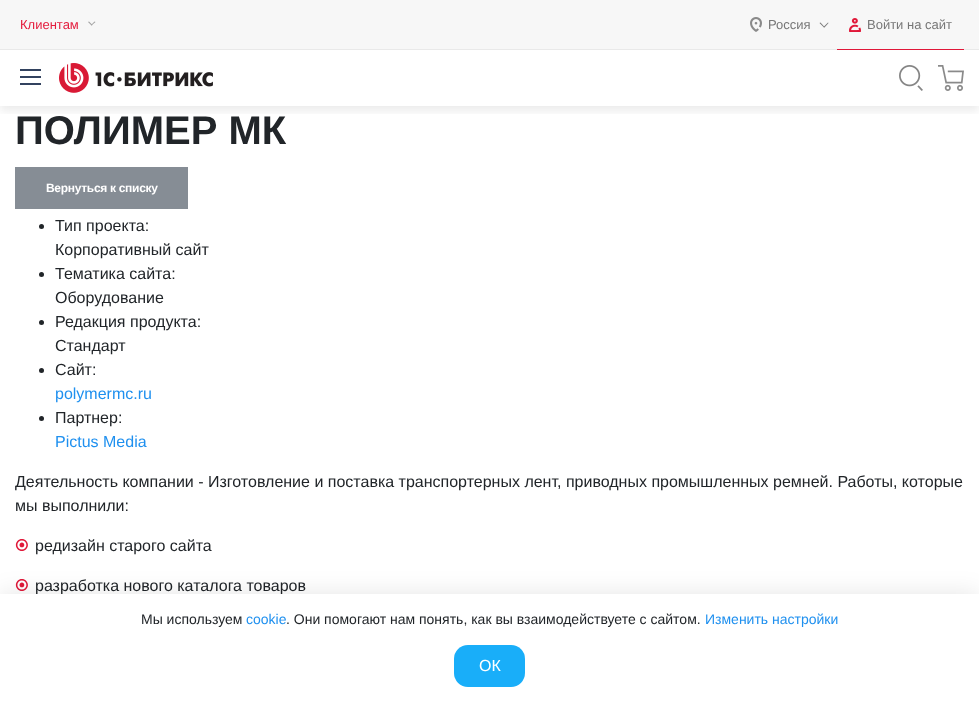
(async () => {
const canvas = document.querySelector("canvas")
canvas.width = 979
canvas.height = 702
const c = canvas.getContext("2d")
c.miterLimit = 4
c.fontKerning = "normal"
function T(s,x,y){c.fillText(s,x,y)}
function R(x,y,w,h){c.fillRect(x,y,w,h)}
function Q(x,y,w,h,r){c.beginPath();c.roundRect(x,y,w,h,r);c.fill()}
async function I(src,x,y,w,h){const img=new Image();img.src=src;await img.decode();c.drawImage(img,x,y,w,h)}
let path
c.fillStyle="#fff"
R(0,0,979,702)
c.fillStyle="#f7f7f7"
R(0,0,979,49)
c.fillStyle="#e9e9e9"
R(0,49,979,1)
c.font="13px Liberation Sans"
c.fillStyle="#e41c3d"
T("Клиентам",20,29)
c.fillStyle="#a1a1a1"
path = new Path2D("M91 25l3.5-3.5l1 .5l-4 3.5z")
c.fill(path)
path = new Path2D("M88 22l1-.5l3.5 3.5l-1 .5z")
c.fill(path)
await I("1.png",750,17,12,15)
c.fillStyle="#777"
T("Россия",768,29)
path = new Path2D("M820.5 22.5l4 4.5l-.5 .5l-4.5-4.5z")
c.fill(path)
path = new Path2D("M823.5 27l4.5-4.5l.5 .5l-4 4.5z")
c.fill(path)
c.fillStyle="#e01839"
R(837,49,127,1)
await I("2.png",849,18,12,14)
c.fillStyle="#777"
T("Войти на сайт",867,29)
c.save()
c.beginPath()
c.rect(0,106,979,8)
c.clip()
c.fillStyle="#00000014"
c.filter="blur(5px)"
c.beginPath()
c.rect(0,55,979,56)
c.fill()
c.filter="none"
c.restore()
c.fillStyle="#32425f"
R(20,76,21,2)
R(20,69,21,2)
R(20,83,21,2)
await I("3.png",59,63,154,30)
await I("4.png",899,65,24,26)
await I("5.png",938,65,26,26)
c.font="bold 40px Liberation Sans"
c.fillStyle="#212529"
T("ПОЛИМЕР МК",15,144)
c.fillStyle="#868d95"
R(15,167,173,42)
c.letterSpacing="-0.3px"
c.font="bold 12px Liberation Sans"
c.fillStyle="#fff"
T("Вернуться к списку",46,192)
c.fillStyle="#212529"
c.beginPath()
c.arc(41.5,226.5,2.5,0,7)
c.fill()
c.letterSpacing="0px"
c.font="16px Liberation Sans"
T("Тип проекта:",55,231)
T("Корпоративный сайт",55,255)
c.beginPath()
c.arc(41.5,274.5,2.5,0,7)
c.fill()
T("Тематика сайта:",55,279)
T("Оборудование",55,303)
c.beginPath()
c.arc(41.5,322.5,2.5,0,7)
c.fill()
T("Редакция продукта:",55,327)
T("Стандарт",55,351)
c.beginPath()
c.arc(41.5,370.5,2.5,0,7)
c.fill()
T("Сайт:",55,375)
c.fillStyle="#1f90ef"
T("polymermc.ru",55,399)
c.fillStyle="#212529"
c.beginPath()
c.arc(41.5,418.5,2.5,0,7)
c.fill()
T("Партнер:",55,423)
c.fillStyle="#1f90ef"
T("Pictus Media",55,447)
c.fillStyle="#212529"
T("Деятельность компании - Изготовление и поставка транспортерных лент, приводных промышленных ремней. Работы, которые",15,487)
T("мы выполнили:",15,511)
await I("6.png",15,539,13,12)
T("редизайн старого сайта",35,551)
await I("6.png",15,579,13,12)
T("разработка нового каталога товаров",35,591)
c.fillStyle="#0000001a"
c.filter="blur(12px)"
c.beginPath()
c.rect(0,594,979,108)
c.fill()
c.filter="none"
c.fillStyle="#fff"
R(0,594,979,108)
c.font="14px Liberation Sans"
c.fillStyle="#212529"
T("Мы используем",141,624)
c.fillStyle="#1f90ef"
T("cookie",246,624)
c.fillStyle="#212529"
T(". Они помогают нам понять, как вы взаимодействуете с сайтом.",286,624)
c.fillStyle="#1f90ef"
T("Изменить настройки",705,624)
c.fillStyle="#19aef9"
Q(454,645,71,42,14)
c.font="16px Liberation Sans"
c.fillStyle="#fff"
T("ОК",479,671)
})()
